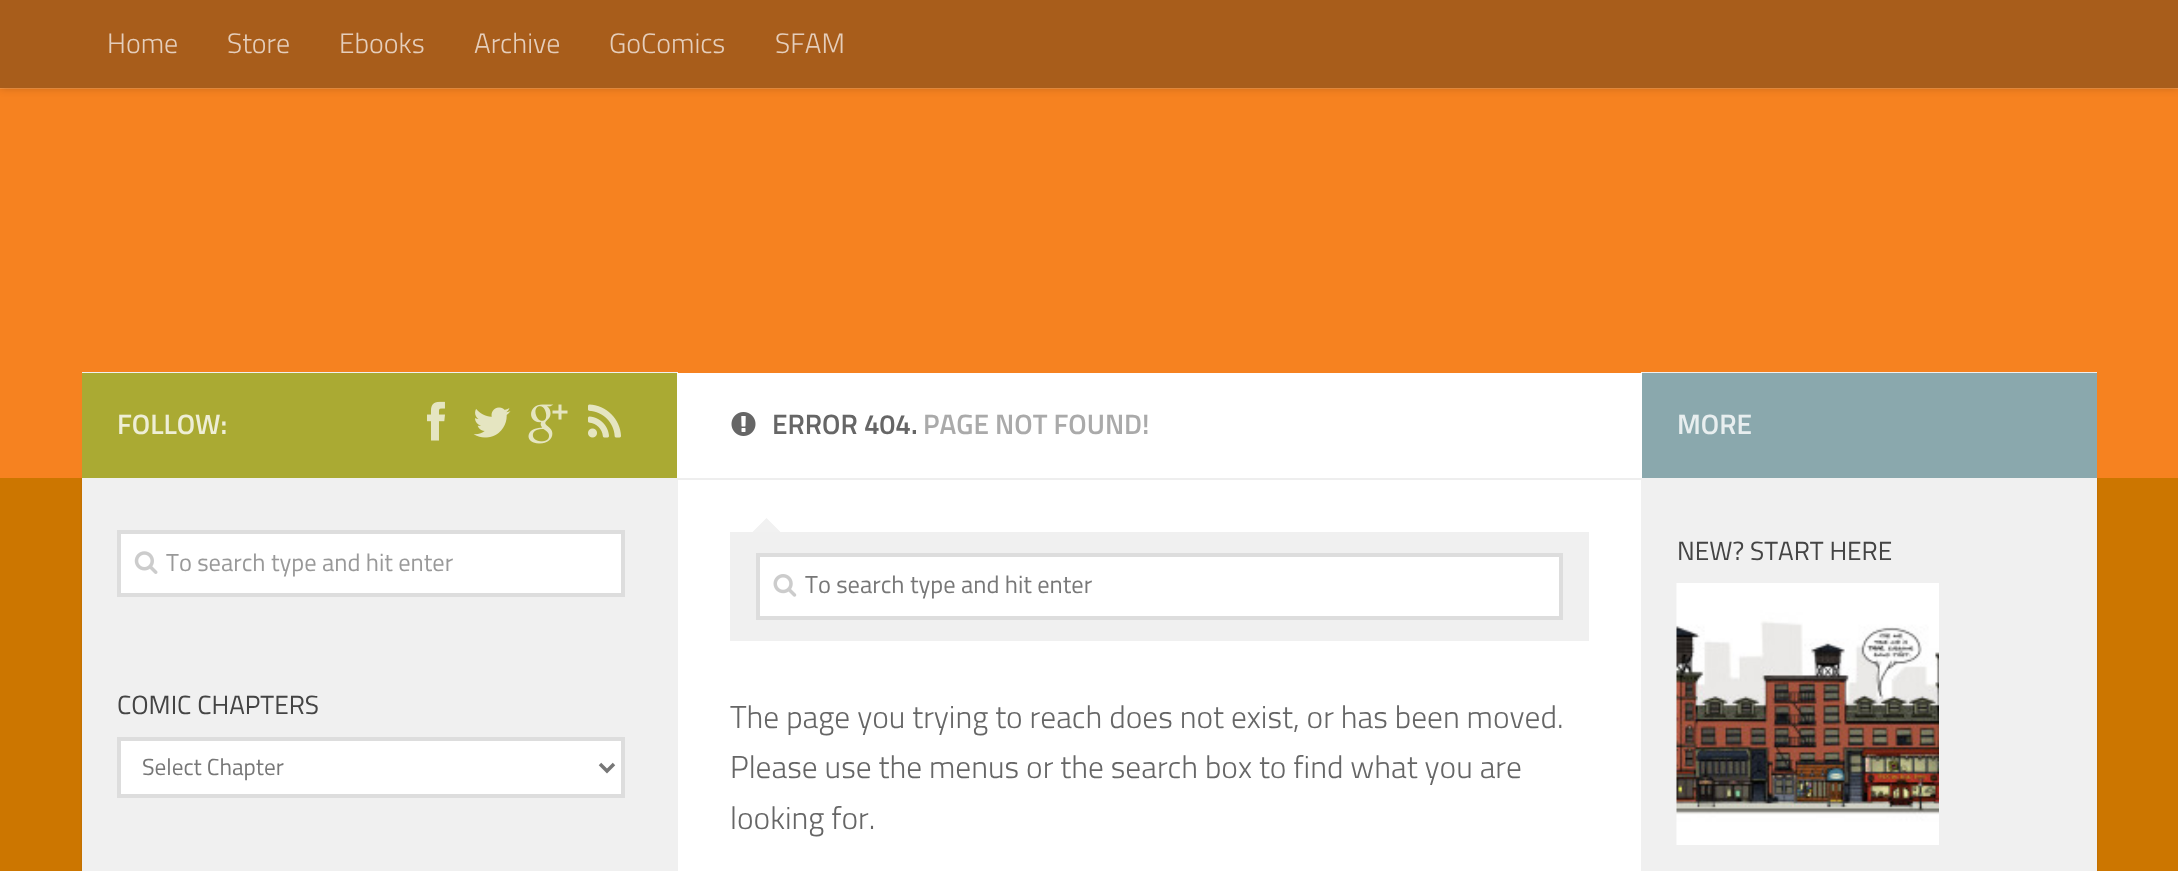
(async () => {
const canvas = document.querySelector("canvas")
canvas.width = 2178
canvas.height = 871
const c = canvas.getContext("2d")
c.miterLimit = 4
c.fontKerning = "normal"
function T(s,x,y){c.fillText(s,x,y)}
function R(x,y,w,h){c.fillRect(x,y,w,h)}
async function I(src,x,y,w,h){const img=new Image();img.src=src;await img.decode();c.drawImage(img,x,y,w,h)}
let path
c.fillStyle="#cc7600"
R(0,0,2178,871)
c.fillStyle="#0000001a"
c.filter="blur(1px)"
c.beginPath()
c.rect(82,375,2015,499)
c.fill()
c.filter="none"
c.fillStyle="#f68220"
R(0,89,2178,389)
c.fillStyle="#f79541"
path = new Path2D("M0 88v1h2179v-87v86z")
c.fill(path)
c.fillStyle="#00000033"
c.filter="blur(4.5px)"
c.beginPath()
c.rect(0,0,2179,88)
c.fill()
c.filter="none"
c.fillStyle="#a85d1b"
R(0,0,2178,88)
c.font="300 28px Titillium"
c.fillStyle="#e5cebb"
T("Home",107,53)
T("Store",227,53)
T("Ebooks",339,53)
T("Archive",474,53)
T("GoComics",609,53)
T("SFAM",775,53)
c.fillStyle="#fff"
R(678,480,963,391)
c.fillStyle="#f0f0f0"
R(1641,372,456,499)
R(82,372,596,499)
c.fillStyle="#aa3"
R(82,373,595,105)
c.font="600 28px Titillium"
c.fillStyle="#eeeed6"
T("FOLLOW:",117,434)
await I("1.png",427,401,18,40)
await I("2.png",473,407,38,31)
await I("3.png",528,404,40,40)
await I("4.png",588,404,33,34)
c.fillStyle="#fff"
c.beginPath()
c.rect(119,532,504,63)
c.fill()
c.strokeStyle="#ddd"
c.lineWidth=4
c.stroke()
await I("5.png",134,551,24,23)
c.font="24.5px Titillium"
c.fillStyle="#999"
T("To search type and hit enter",166,571)
c.font="26.25px Titillium"
c.fillStyle="#444"
T("COMIC CHAPTERS",117,714)
c.fillStyle="#fff"
c.beginPath()
c.rect(119,739,504,57)
c.fill()
c.stroke()
path = new Path2D("M600 764l7 7l7-7")
c.strokeStyle="#777"
c.lineWidth=3.5
c.stroke(path)
c.font="23.25px Titillium"
c.fillStyle="#777"
T("Select Chapter",142,775)
c.fillStyle="#fff"
R(677,373,965,105)
c.fillStyle="#eee"
R(677,478,965,2)
await I("6.png",731,412,25,24)
c.font="600 28px Titillium"
c.fillStyle="#666"
T("ERROR 404.",772,434)
c.fillStyle="#aaa"
T("PAGE NOT FOUND!",923,434)
c.fillStyle="#f0f0f0"
R(730,532,859,109)
c.fillStyle="#f1f1f1"
path = new Path2D("M780.5 532h-28l14-14z")
c.fill(path)
c.fillStyle="#fff"
c.beginPath()
c.rect(758,555,803,63)
c.fill()
c.strokeStyle="#ddd"
c.lineWidth=4
c.stroke()
await I("7.png",773,574,24,23)
c.font="24.5px Titillium"
c.fillStyle="#777"
T("To search type and hit enter",805,593)
c.font="300 31.5px Titillium"
c.fillStyle="#666"
T("The page you trying to reach does not exist, or has been moved.",730,728)
T("Please use the menus or the search box to find what you are",730,778)
T("looking for.",730,829)
c.fillStyle="#8aa8ad"
R(1642,373,455,105)
c.font="600 28px Titillium"
c.fillStyle="#e8eeef"
T("MORE",1677,434)
c.font="26.25px Titillium"
c.fillStyle="#444"
T("NEW? START HERE",1677,560)
await I("8.png",1676,583,263,262)
})()
